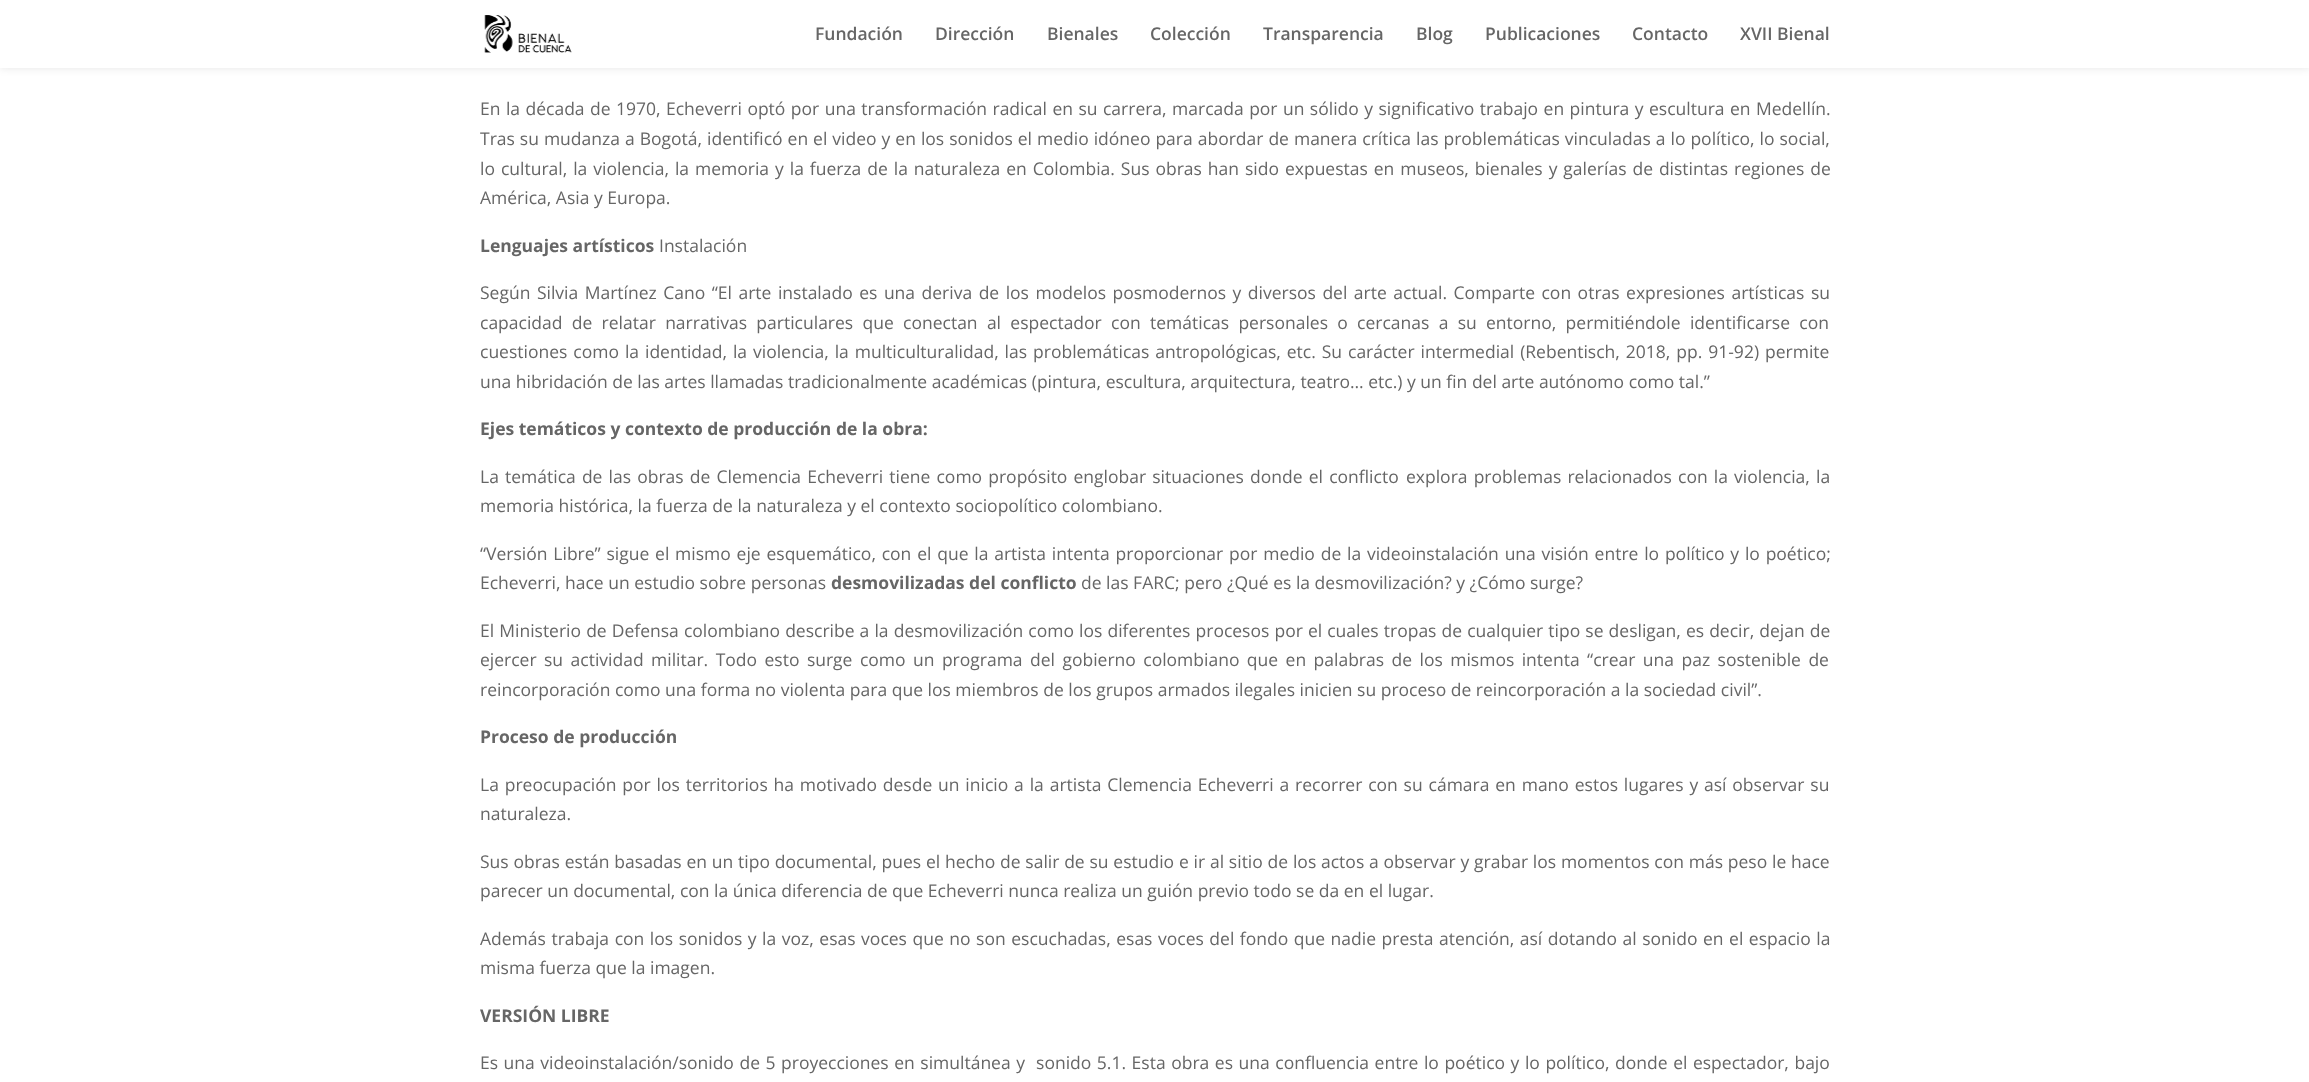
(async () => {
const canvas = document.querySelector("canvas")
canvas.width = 2309
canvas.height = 1082
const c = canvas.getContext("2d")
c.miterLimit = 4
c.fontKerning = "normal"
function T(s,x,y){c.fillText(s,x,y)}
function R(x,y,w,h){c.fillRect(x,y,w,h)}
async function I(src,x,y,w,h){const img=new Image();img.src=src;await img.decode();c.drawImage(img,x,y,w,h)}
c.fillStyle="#fff"
R(0,0,2309,1082)
c.fillStyle="#0000001a"
c.filter="blur(4.5px)"
c.beginPath()
c.rect(0,0,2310,68)
c.fill()
c.filter="none"
c.fillStyle="#fff"
R(0,0,2309,68)
await I("1.png",484,15,88,38)
c.font="600 17.5px Open Sans"
c.fillStyle="#666"
T("Fundación",815,40)
T("Dirección",935,40)
T("Bienales",1047,40)
T("Colección",1150,40)
T("Transparencia",1263,40)
T("Blog",1416,40)
T("Publicaciones",1485,40)
T("Contacto",1632,40)
T("XVII Bienal",1740,40)
c.wordSpacing="0.9px"
c.font="17.5px Open Sans"
T("En la década de 1970, Echeverri optó por una transformación radical en su carrera, marcada por un sólido y significativo trabajo en pintura y escultura en Medellín.",480,115)
c.wordSpacing="0.45px"
T("Tras su mudanza a Bogotá, identificó en el video y en los sonidos el medio idóneo para abordar de manera crítica las problemáticas vinculadas a lo político, lo social,",480,145)
c.wordSpacing="1.4px"
T("lo cultural, la violencia, la memoria y la fuerza de la naturaleza en Colombia. Sus obras han sido expuestas en museos, bienales y galerías de distintas regiones de",480,175)
c.wordSpacing="0px"
T("América, Asia y Europa.",480,204)
c.font="bold 17.5px Open Sans"
T("Lenguajes artísticos",480,252)
c.font="17.5px Open Sans"
T("Instalación",659,252)
c.wordSpacing="1.95px"
T("Según Silvia Martínez Cano “El arte instalado es una deriva de los modelos posmodernos y diversos del arte actual. Comparte con otras expresiones artísticas su",480,299)
c.wordSpacing="4.75px"
T("capacidad de relatar narrativas particulares que conectan al espectador con temáticas personales o cercanas a su entorno, permitiéndole identificarse con",480,329)
c.wordSpacing="1.4px"
T("cuestiones como la identidad, la violencia, la multiculturalidad, las problemáticas antropológicas, etc. Su carácter intermedial (Rebentisch, 2018, pp. 91-92) permite",480,358)
c.wordSpacing="0px"
T("una hibridación de las artes llamadas tradicionalmente académicas (pintura, escultura, arquitectura, teatro… etc.) y un fin del arte autónomo como tal.”",480,388)
c.font="bold 17.5px Open Sans"
T("Ejes temáticos y contexto de producción de la obra:",480,435)
c.wordSpacing="1.6px"
c.font="17.5px Open Sans"
T("La temática de las obras de Clemencia Echeverri tiene como propósito englobar situaciones donde el conflicto",480,483)
T("explora problemas relacionados con la violencia, la",1406,483)
c.wordSpacing="0px"
T("memoria histórica, la fuerza de la naturaleza y el contexto sociopolítico colombiano.",480,512)
c.wordSpacing="1.25px"
T("“Versión Libre” sigue el mismo eje esquemático, con el que la artista intenta proporcionar por medio de la videoinstalación una visión entre lo político y lo poético;",480,560)
c.wordSpacing="0px"
T("Echeverri, hace un estudio sobre personas",480,589)
c.font="bold 17.5px Open Sans"
T("desmovilizadas del conflicto",831,589)
c.font="17.5px Open Sans"
T("de las FARC; pero ¿Qué es la desmovilización? y ¿Cómo surge?",1081,589)
c.wordSpacing="0.55px"
T("El Ministerio de Defensa colombiano describe a la desmovilización como los diferentes procesos por el cuales tropas de cualquier tipo se desligan, es decir, dejan de",480,637)
c.wordSpacing="2.9px"
T("ejercer su actividad militar. Todo esto surge como un programa del gobierno colombiano que en palabras de los mismos intenta “crear una paz sostenible de",480,666)
c.wordSpacing="0px"
T("reincorporación como una forma no violenta para que los miembros de los grupos armados ilegales inicien su proceso de reincorporación a la sociedad civil”.",480,696)
c.font="bold 17.5px Open Sans"
T("Proceso de producción",480,743)
c.wordSpacing="1.3px"
c.font="17.5px Open Sans"
T("La preocupación por los territorios ha motivado desde un inicio a la artista Clemencia Echeverri a recorrer con su cámara en mano estos lugares y así observar su",480,791)
c.wordSpacing="0px"
T("naturaleza.",480,820)
c.wordSpacing="0.25px"
T("Sus obras están basadas en un tipo documental, pues el hecho de salir de su estudio e ir al sitio de los actos a observar y grabar los momentos con más peso le hace",480,868)
c.wordSpacing="0px"
T("parecer un documental, con la única diferencia de que Echeverri nunca realiza un guión previo todo se da en el lugar.",480,897)
c.wordSpacing="1px"
T("Además trabaja con los sonidos y la voz, esas voces que no son escuchadas, esas voces del fondo que nadie presta atención, así dotando al sonido en el espacio la",480,945)
c.wordSpacing="0px"
T("misma fuerza que la imagen.",480,974)
c.font="bold 17.5px Open Sans"
T("VERSIÓN LIBRE",480,1022)
c.wordSpacing="1px"
c.font="17.5px Open Sans"
T("Es una videoinstalación/sonido de 5 proyecciones en simultánea y  sonido 5.1. Esta obra es una confluencia entre lo poético y lo político, donde el espectador, bajo",480,1069)
})()
